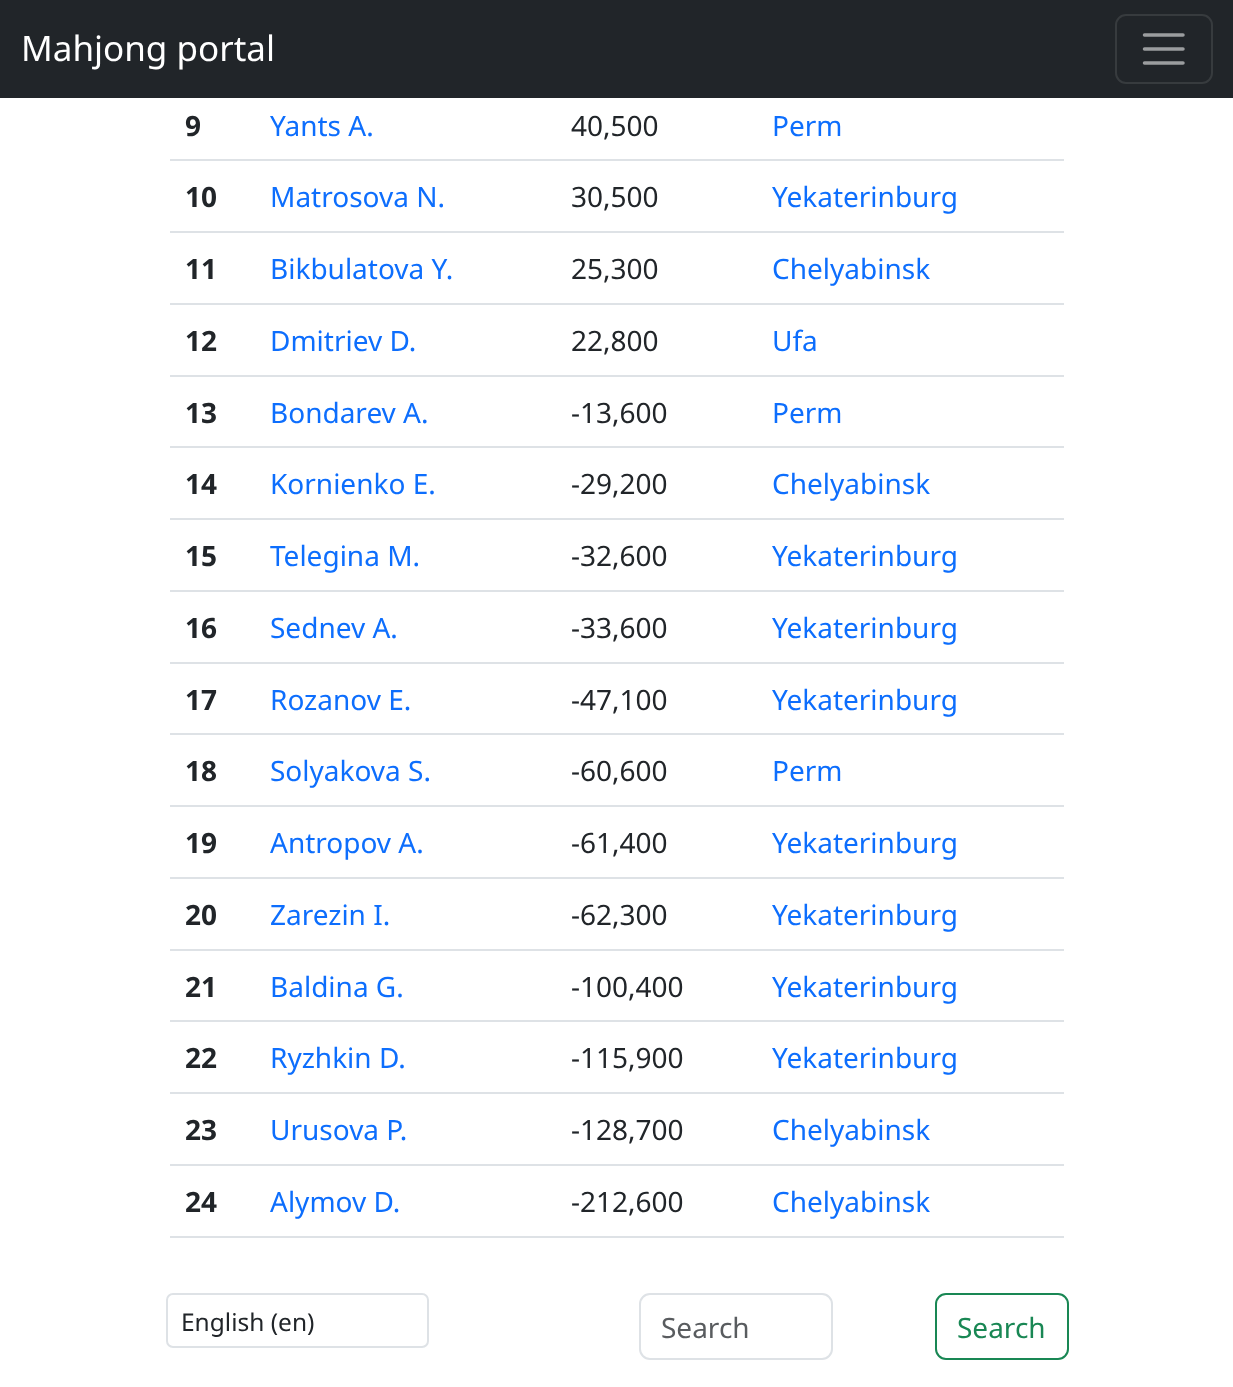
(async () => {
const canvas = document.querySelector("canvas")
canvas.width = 1233
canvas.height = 1387
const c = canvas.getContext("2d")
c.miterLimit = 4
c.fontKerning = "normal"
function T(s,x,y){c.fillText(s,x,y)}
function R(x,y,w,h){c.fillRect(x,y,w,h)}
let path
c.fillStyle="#fff"
R(0,0,1233,1387)
c.fillStyle="#212529"
R(0,0,1233,98)
c.font="35px Noto Sans"
c.fillStyle="#fff"
T("Mahjong portal",21,61)
c.beginPath()
c.roundRect(1116,15,96,68,10)
c.strokeStyle="#373b3e"
c.lineWidth=2
c.stroke()
path = new Path2D("M1144.5 35h38.5m-38.5 14h38.5m-38.5 14h38.5")
c.strokeStyle="#9b9d9f"
c.lineWidth=3.5
c.lineCap="round"
c.stroke(path)
c.font="bold 28px Noto Sans"
c.fillStyle="#212529"
T("9",185,136)
c.font="28px Noto Sans"
c.fillStyle="#0d6efd"
T("Yants A.",270,136)
c.fillStyle="#212529"
T("40,500",571,136)
c.fillStyle="#dee2e6"
R(170,159,894,2)
c.fillStyle="#0d6efd"
T("Perm",772,136)
c.font="bold 28px Noto Sans"
c.fillStyle="#212529"
T("10",185,207)
c.font="28px Noto Sans"
c.fillStyle="#0d6efd"
T("Matrosova N.",270,207)
c.fillStyle="#212529"
T("30,500",571,207)
c.fillStyle="#dee2e6"
R(170,231,894,2)
c.fillStyle="#0d6efd"
T("Yekaterinburg",772,207)
c.font="bold 28px Noto Sans"
c.fillStyle="#212529"
T("11",185,279)
c.font="28px Noto Sans"
c.fillStyle="#0d6efd"
T("Bikbulatova Y.",270,279)
c.fillStyle="#212529"
T("25,300",571,279)
c.fillStyle="#dee2e6"
R(170,303,894,2)
c.fillStyle="#0d6efd"
T("Chelyabinsk",772,279)
c.font="bold 28px Noto Sans"
c.fillStyle="#212529"
T("12",185,351)
c.font="28px Noto Sans"
c.fillStyle="#0d6efd"
T("Dmitriev D.",270,351)
c.fillStyle="#212529"
T("22,800",571,351)
c.fillStyle="#dee2e6"
R(170,375,894,2)
c.fillStyle="#0d6efd"
T("Ufa",772,351)
c.font="bold 28px Noto Sans"
c.fillStyle="#212529"
T("13",185,423)
c.font="28px Noto Sans"
c.fillStyle="#0d6efd"
T("Bondarev A.",270,423)
c.fillStyle="#212529"
T("-13,600",571,423)
c.fillStyle="#dee2e6"
R(170,446,894,2)
c.fillStyle="#0d6efd"
T("Perm",772,423)
c.font="bold 28px Noto Sans"
c.fillStyle="#212529"
T("14",185,494)
c.font="28px Noto Sans"
c.fillStyle="#0d6efd"
T("Kornienko E.",270,494)
c.fillStyle="#212529"
T("-29,200",571,494)
c.fillStyle="#dee2e6"
R(170,518,894,2)
c.fillStyle="#0d6efd"
T("Chelyabinsk",772,494)
c.font="bold 28px Noto Sans"
c.fillStyle="#212529"
T("15",185,566)
c.font="28px Noto Sans"
c.fillStyle="#0d6efd"
T("Telegina M.",270,566)
c.fillStyle="#212529"
T("-32,600",571,566)
c.fillStyle="#dee2e6"
R(170,590,894,2)
c.fillStyle="#0d6efd"
T("Yekaterinburg",772,566)
c.font="bold 28px Noto Sans"
c.fillStyle="#212529"
T("16",185,638)
c.font="28px Noto Sans"
c.fillStyle="#0d6efd"
T("Sednev A.",270,638)
c.fillStyle="#212529"
T("-33,600",571,638)
c.fillStyle="#dee2e6"
R(170,662,894,2)
c.fillStyle="#0d6efd"
T("Yekaterinburg",772,638)
c.font="bold 28px Noto Sans"
c.fillStyle="#212529"
T("17",185,710)
c.font="28px Noto Sans"
c.fillStyle="#0d6efd"
T("Rozanov E.",270,710)
c.fillStyle="#212529"
T("-47,100",571,710)
c.fillStyle="#dee2e6"
R(170,733,894,2)
c.fillStyle="#0d6efd"
T("Yekaterinburg",772,710)
c.font="bold 28px Noto Sans"
c.fillStyle="#212529"
T("18",185,781)
c.font="28px Noto Sans"
c.fillStyle="#0d6efd"
T("Solyakova S.",270,781)
c.fillStyle="#212529"
T("-60,600",571,781)
c.fillStyle="#dee2e6"
R(170,805,894,2)
c.fillStyle="#0d6efd"
T("Perm",772,781)
c.font="bold 28px Noto Sans"
c.fillStyle="#212529"
T("19",185,853)
c.font="28px Noto Sans"
c.fillStyle="#0d6efd"
T("Antropov A.",270,853)
c.fillStyle="#212529"
T("-61,400",571,853)
c.fillStyle="#dee2e6"
R(170,877,894,2)
c.fillStyle="#0d6efd"
T("Yekaterinburg",772,853)
c.font="bold 28px Noto Sans"
c.fillStyle="#212529"
T("20",185,925)
c.font="28px Noto Sans"
c.fillStyle="#0d6efd"
T("Zarezin I.",270,925)
c.fillStyle="#212529"
T("-62,300",571,925)
c.fillStyle="#dee2e6"
R(170,949,894,2)
c.fillStyle="#0d6efd"
T("Yekaterinburg",772,925)
c.font="bold 28px Noto Sans"
c.fillStyle="#212529"
T("21",185,997)
c.font="28px Noto Sans"
c.fillStyle="#0d6efd"
T("Baldina G.",270,997)
c.fillStyle="#212529"
T("-100,400",571,997)
c.fillStyle="#dee2e6"
R(170,1020,894,2)
c.fillStyle="#0d6efd"
T("Yekaterinburg",772,997)
c.font="bold 28px Noto Sans"
c.fillStyle="#212529"
T("22",185,1068)
c.font="28px Noto Sans"
c.fillStyle="#0d6efd"
T("Ryzhkin D.",270,1068)
c.fillStyle="#212529"
T("-115,900",571,1068)
c.fillStyle="#dee2e6"
R(170,1092,894,2)
c.fillStyle="#0d6efd"
T("Yekaterinburg",772,1068)
c.font="bold 28px Noto Sans"
c.fillStyle="#212529"
T("23",185,1140)
c.font="28px Noto Sans"
c.fillStyle="#0d6efd"
T("Urusova P.",270,1140)
c.fillStyle="#212529"
T("-128,700",571,1140)
c.fillStyle="#dee2e6"
R(170,1164,894,2)
c.fillStyle="#0d6efd"
T("Chelyabinsk",772,1140)
c.font="bold 28px Noto Sans"
c.fillStyle="#212529"
T("24",185,1212)
c.font="28px Noto Sans"
c.fillStyle="#0d6efd"
T("Alymov D.",270,1212)
c.fillStyle="#212529"
T("-212,600",571,1212)
c.fillStyle="#dee2e6"
R(170,1236,894,2)
c.fillStyle="#0d6efd"
T("Chelyabinsk",772,1212)
c.beginPath()
c.roundRect(167,1294,261,53,6)
c.strokeStyle="#dee2e6"
c.lineWidth=2
c.stroke()
c.font="24.5px Noto Sans"
c.fillStyle="#212529"
T("English (en)",181,1331)
c.beginPath()
c.roundRect(640,1294,192,65,10)
c.stroke()
c.font="28px Noto Sans"
c.fillStyle="#595c5f"
T("Search",661,1338)
c.beginPath()
c.roundRect(936,1294,132,65,10)
c.strokeStyle="#198754"
c.stroke()
c.fillStyle="#198754"
T("Search",957,1338)
})()
